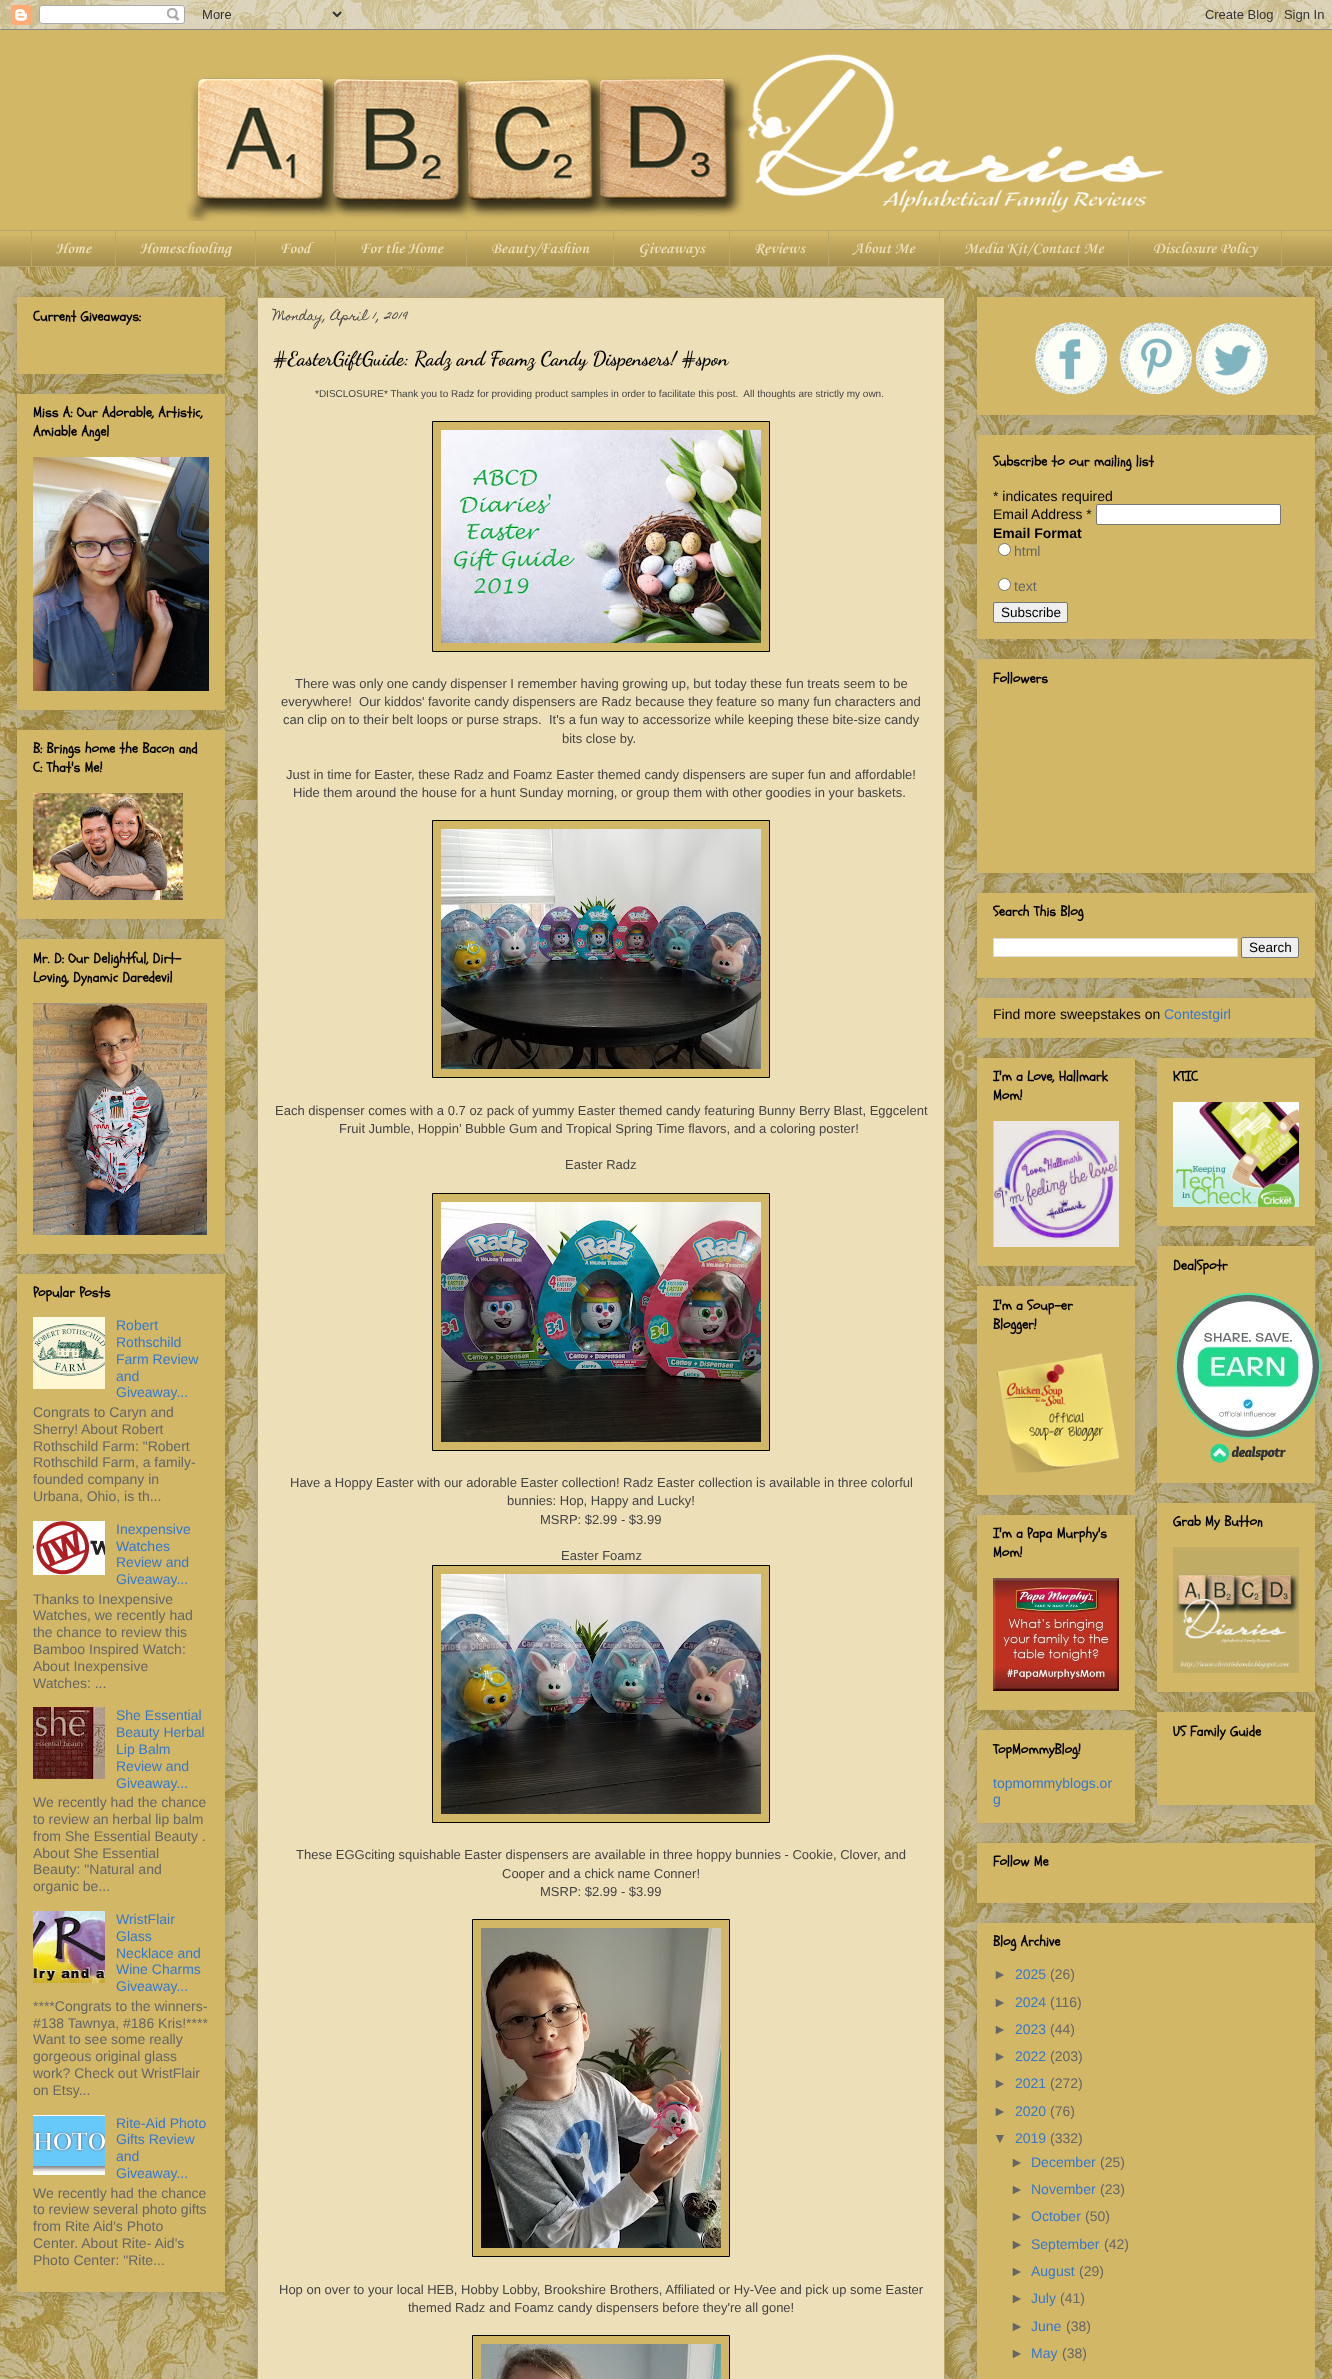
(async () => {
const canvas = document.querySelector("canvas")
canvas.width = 1332
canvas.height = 2379
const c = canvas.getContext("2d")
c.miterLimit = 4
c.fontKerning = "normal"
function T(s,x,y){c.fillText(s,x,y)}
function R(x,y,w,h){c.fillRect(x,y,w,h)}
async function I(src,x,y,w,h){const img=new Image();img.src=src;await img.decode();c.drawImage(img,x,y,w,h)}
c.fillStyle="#fff"
R(0,0,1332,2379)
await I("1.png",0,0,1332,2379)
await I("2.png",0,0,1332,30)
c.fillStyle="#d2b766"
R(0,30,1332,200)
await I("3.png",186,53,978,168)
R(0,231,1332,35)
await I("4.png",0,236,1332,30)
c.fillStyle="#bba66b"
R(0,230,1332,1)
R(31,230,1,37)
c.font="bold 16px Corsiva"
c.fillStyle="#eddfb7"
T("Home",56,253)
c.fillStyle="#bba66b"
R(115,230,1,37)
c.fillStyle="#eddfb7"
T("Homeschooling",140,253)
c.fillStyle="#bba66b"
R(255,230,1,37)
c.fillStyle="#eddfb7"
T("Food",280,253)
c.fillStyle="#bba66b"
R(335,230,1,37)
c.fillStyle="#eddfb7"
T("For the Home",360,253)
c.fillStyle="#bba66b"
R(466,230,1,37)
c.fillStyle="#eddfb7"
T("Beauty/Fashion",491,253)
c.fillStyle="#bba66b"
R(613,230,1,37)
c.fillStyle="#eddfb7"
T("Giveaways",638,253)
c.fillStyle="#bba66b"
R(729,230,1,37)
c.fillStyle="#eddfb7"
T("Reviews",754,253)
c.fillStyle="#bba66b"
R(828,230,1,37)
c.fillStyle="#eddfb7"
T("About Me",853,253)
c.fillStyle="#bba66b"
R(939,230,1,37)
c.fillStyle="#eddfb7"
T("Media Kit/Contact Me",964,253)
c.strokeStyle="#bba66b"
c.strokeRect(1128.5,230.5,153,36)
T("Disclosure Policy",1153,253)
c.fillStyle="#bba66b"
R(0,266,1332,1)
c.fillStyle="#00000033"
c.filter="blur(10px)"
c.beginPath()
c.rect(17,297,208,77)
c.fill()
c.filter="none"
c.fillStyle="#d2b766"
R(17,297,208,77)
c.font="bold 14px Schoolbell"
c.fillStyle="#000"
T("Current Giveaways:",33,321)
c.fillStyle="#00000033"
c.filter="blur(10px)"
c.beginPath()
c.rect(17,394,208,316)
c.fill()
c.filter="none"
c.fillStyle="#d2b766"
R(17,394,208,316)
c.fillStyle="#000"
T("Miss A: Our Adorable, Artistic,",33,417)
T("Amiable Angel",33,436)
await I("5.png",33,457,176,234)
c.fillStyle="#00000033"
c.filter="blur(10px)"
c.beginPath()
c.rect(17,730,208,189)
c.fill()
c.filter="none"
c.fillStyle="#d2b766"
R(17,730,208,189)
c.fillStyle="#000"
T("B: Brings home the Bacon and",33,753)
T("C: That's Me!",33,772)
await I("6.png",33,793,150,107)
c.fillStyle="#00000033"
c.filter="blur(10px)"
c.beginPath()
c.rect(17,939,208,315)
c.fill()
c.filter="none"
c.fillStyle="#d2b766"
R(17,939,208,315)
c.fillStyle="#000"
T("Mr. D: Our Delightful, Dirt-",33,963)
T("Loving, Dynamic Daredevil",33,982)
await I("7.png",33,1003,174,232)
c.fillStyle="#00000033"
c.filter="blur(10px)"
c.beginPath()
c.rect(17,1274,208,1018)
c.fill()
c.filter="none"
c.fillStyle="#d2b766"
R(17,1274,208,1018)
c.fillStyle="#000"
T("Popular Posts",33,1297)
await I("8.png",33,1317,72,72)
c.font="14px Liberation Sans"
c.fillStyle="#3778cd"
T("Robert",116,1330)
T("Rothschild",116,1347)
T("Farm Review",116,1364)
T("and",116,1381)
T("Giveaway...",116,1397)
c.fillStyle="#666"
T("Congrats to Caryn and",33,1417)
T("Sherry!",33,1434)
T("About Robert",81,1434)
T("Rothschild Farm: \"Robert",33,1451)
T("Rothschild Farm, a family-",33,1467)
T("founded company in",33,1484)
T("Urbana, Ohio, is th...",33,1501)
await I("9.png",33,1521,72,54)
c.fillStyle="#3778cd"
T("Inexpensive",116,1534)
T("Watches",116,1551)
T("Review and",116,1567)
T("Giveaway...",116,1584)
c.fillStyle="#666"
T("Thanks to Inexpensive",33,1604)
T("Watches, we recently had",33,1620)
T("the chance to review this",33,1637)
T("Bamboo Inspired Watch:",33,1654)
T("About Inexpensive",33,1671)
T("Watches: ...",33,1688)
await I("10.png",33,1707,72,72)
c.fillStyle="#3778cd"
T("She Essential",116,1720)
T("Beauty Herbal",116,1737)
T("Lip Balm",116,1754)
T("Review and",116,1771)
T("Giveaway...",116,1788)
c.fillStyle="#666"
T("We recently had the chance",33,1807)
T("to review an herbal lip balm",33,1824)
T("from She Essential Beauty .",33,1841)
T("About She Essential",33,1858)
T("Beauty: \"Natural and",33,1874)
T("organic be...",33,1891)
await I("11.png",33,1911,72,72)
c.fillStyle="#3778cd"
T("WristFlair",116,1924)
T("Glass",116,1941)
T("Necklace and",116,1958)
T("Wine Charms",116,1974)
T("Giveaway...",116,1991)
c.fillStyle="#666"
T("****Congrats to the winners-",33,2011)
T("#138 Tawnya, #186 Kris!****",33,2028)
T("Want to see some really",33,2044)
T("gorgeous original glass",33,2061)
T("work? Check out WristFlair",33,2078)
T("on Etsy...",33,2095)
await I("12.png",33,2115,72,60)
c.fillStyle="#3778cd"
T("Rite-Aid Photo",116,2128)
T("Gifts Review",116,2144)
T("and",116,2161)
T("Giveaway...",116,2178)
c.fillStyle="#666"
T("We recently had the chance",33,2198)
T("to review several photo gifts",33,2214)
T("from Rite Aid's Photo",33,2231)
T("Center. About Rite- Aid's",33,2248)
T("Photo Center: \"Rite...",33,2265)
c.fillStyle="#00000033"
c.filter="blur(10px)"
c.beginPath()
c.rect(257,297,688,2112)
c.fill()
c.filter="none"
c.fillStyle="#eddfb7"
c.beginPath()
c.rect(257.5,297.5,687,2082)
c.fill()
c.stroke()
c.font="12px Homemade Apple"
c.fillStyle="#444"
T("Monday, April 1, 2019",273,320)
c.font="bold 20px Dancing Script"
c.fillStyle="#000"
T("#EasterGiftGuide: Radz and Foamz Candy Dispensers! #spon",273,365)
c.font="10px Liberation Sans"
c.fillStyle="#444"
T("*DISCLOSURE* Thank you to Radz for providing product samples in order to facilitate this post.  All thoughts are strictly my own.",315,397)
c.fillStyle="#d2b766"
c.beginPath()
c.rect(432.5,421.5,337,230)
c.fill()
c.strokeStyle="#000"
c.stroke()
await I("13.png",441,430,320,213)
c.font="13px Liberation Sans"
c.fillStyle="#444"
T("There was only one candy dispenser I remember having growing up, but today these fun treats seem to be",295,688)
T("everywhere!  Our kiddos' favorite candy dispensers are Radz because they feature so many fun characters and",281,706)
T("can clip on to their belt loops or purse straps.  It's a fun way to accessorize while keeping these bite-size candy",283,724)
T("bits close by.",562,743)
T("Just in time for Easter, these Radz and Foamz Easter themed candy dispensers are super fun and affordable!",286,779)
T("Hide them around the house for a hunt Sunday morning, or group them with other goodies in your baskets.",293,797)
c.fillStyle="#d2b766"
c.beginPath()
c.rect(432.5,820.5,337,257)
c.fill()
c.stroke()
await I("14.png",441,829,320,240)
c.fillStyle="#444"
T("Each dispenser comes with a 0.7 oz pack of yummy Easter themed candy featuring Bunny Berry Blast, Eggcelent",275,1115)
T("Fruit Jumble, Hoppin’ Bubble Gum and Tropical Spring Time flavors, and a coloring poster!",339,1133)
T("Easter Radz",565,1169)
c.fillStyle="#d2b766"
c.beginPath()
c.rect(432.5,1193.5,337,257)
c.fill()
c.stroke()
await I("15.png",441,1202,320,240)
c.fillStyle="#444"
T("Have a Hoppy Easter with our adorable Easter collection! Radz Easter collection is available in three colorful",290,1487)
T("bunnies: Hop, Happy and Lucky!",507,1505)
T("MSRP: $2.99 - $3.99",540,1524)
T("Easter Foamz",561,1560)
c.fillStyle="#d2b766"
c.beginPath()
c.rect(432.5,1565.5,337,257)
c.fill()
c.stroke()
await I("16.png",441,1574,320,240)
c.fillStyle="#444"
T("These EGGciting squishable Easter dispensers are available in three hoppy bunnies - Cookie, Clover, and",296,1859)
T("Cooper and a chick name Conner!",502,1878)
T("MSRP: $2.99 - $3.99",540,1896)
c.fillStyle="#d2b766"
c.beginPath()
c.rect(472.5,1919.5,257,337)
c.fill()
c.stroke()
await I("17.png",481,1928,240,320)
c.fillStyle="#444"
T("Hop on over to your local HEB, Hobby Lobby, Brookshire Brothers, Affiliated or Hy-Vee and pick up some Easter",279,2294)
T("themed Radz and Foamz candy dispensers before they're all gone!",408,2312)
c.fillStyle="#d2b766"
c.beginPath()
c.rect(472.5,2335.5,257,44)
c.fill()
c.stroke()
await I("18.png",481,2344,240,35)
c.fillStyle="#00000033"
c.filter="blur(10px)"
c.beginPath()
c.rect(977,297,338,118)
c.fill()
c.filter="none"
c.fillStyle="#d2b766"
R(977,297,338,118)
await I("19.png",1034,322,74,73)
await I("20.png",1119,322,73,73)
await I("21.png",1195,322,73,73)
c.fillStyle="#00000033"
c.filter="blur(10px)"
c.beginPath()
c.rect(977,435,338,204)
c.fill()
c.filter="none"
c.fillStyle="#d2b766"
R(977,435,338,204)
c.font="bold 14px Schoolbell"
c.fillStyle="#000"
T("Subscribe to our mailing list",993,466)
c.font="14px Liberation Sans"
T("* indicates required",993,501)
T("Email Address *",993,519)
c.fillStyle="#fff"
c.beginPath()
c.roundRect(1096.5,504.5,184,20,1.5)
c.fill()
c.strokeStyle="#767676"
c.stroke()
c.font="bold 14px Liberation Sans"
c.fillStyle="#000"
T("Email Format",993,538)
c.fillStyle="#fff"
c.beginPath()
c.arc(1004.5,549.5,6,0,7)
c.fill()
c.stroke()
c.font="14px Liberation Sans"
c.fillStyle="#666"
T("html",1014,556)
c.fillStyle="#fff"
c.beginPath()
c.arc(1004.5,584.5,6,0,7)
c.fill()
c.stroke()
c.fillStyle="#666"
T("text",1014,591)
c.fillStyle="#efefef"
c.beginPath()
c.roundRect(993.5,602.5,74,20,1.5)
c.fill()
c.stroke()
c.font="13.5px Liberation Sans"
c.fillStyle="#000"
T("Subscribe",1001,617)
c.fillStyle="#00000033"
c.filter="blur(10px)"
c.beginPath()
c.rect(977,659,338,214)
c.fill()
c.filter="none"
c.fillStyle="#d2b766"
R(977,659,338,214)
c.font="bold 14px Schoolbell"
c.fillStyle="#000"
T("Followers",993,683)
c.fillStyle="#00000033"
c.filter="blur(10px)"
c.beginPath()
c.rect(977,893,338,85)
c.fill()
c.filter="none"
c.fillStyle="#d2b766"
R(977,893,338,85)
c.fillStyle="#000"
T("Search This Blog",993,916)
c.fillStyle="#fff"
c.beginPath()
c.rect(993.5,938.5,244,18)
c.fill()
c.strokeStyle="#ddd"
c.stroke()
c.fillStyle="#efefef"
c.beginPath()
c.roundRect(1241.5,937.5,57,20,1.5)
c.fill()
c.strokeStyle="#767676"
c.stroke()
c.font="13.5px Liberation Sans"
c.fillStyle="#000"
T("Search",1249,952)
c.fillStyle="#00000033"
c.filter="blur(10px)"
c.beginPath()
c.rect(977,998,338,40)
c.fill()
c.filter="none"
c.fillStyle="#d2b766"
R(977,998,338,40)
c.font="14px Liberation Sans"
c.fillStyle="#000"
T("Find more sweepstakes on",993,1019)
c.fillStyle="#3778cd"
T("Contestgirl",1164,1019)
c.fillStyle="#00000033"
c.filter="blur(10px)"
c.beginPath()
c.rect(977,1058,158,208)
c.fill()
c.filter="none"
c.fillStyle="#d2b766"
R(977,1058,158,208)
c.font="bold 14px Schoolbell"
c.fillStyle="#000"
T("I'm a Love, Hallmark",993,1081)
T("Mom!",993,1100)
await I("22.png",993,1121,126,126)
c.fillStyle="#00000033"
c.filter="blur(10px)"
c.beginPath()
c.rect(977,1286,158,209)
c.fill()
c.filter="none"
c.fillStyle="#d2b766"
R(977,1286,158,209)
c.fillStyle="#000"
T("I'm a Soup-er",993,1310)
T("Blogger!",993,1329)
await I("23.png",996,1353,123,120)
c.fillStyle="#00000033"
c.filter="blur(10px)"
c.beginPath()
c.rect(977,1515,158,195)
c.fill()
c.filter="none"
c.fillStyle="#d2b766"
R(977,1515,158,195)
c.fillStyle="#000"
T("I'm a Papa Murphy's",993,1538)
T("Mom!",993,1557)
await I("24.png",993,1578,126,113)
c.fillStyle="#00000033"
c.filter="blur(10px)"
c.beginPath()
c.rect(977,1730,158,93)
c.fill()
c.filter="none"
c.fillStyle="#d2b766"
R(977,1730,158,93)
c.fillStyle="#000"
T("TopMommyBlog!",993,1754)
c.font="14px Liberation Sans"
c.fillStyle="#3778cd"
T("topmommyblogs.or",993,1788)
T("g",993,1804)
c.fillStyle="#00000033"
c.filter="blur(10px)"
c.beginPath()
c.rect(1157,1058,158,168)
c.fill()
c.filter="none"
c.fillStyle="#d2b766"
R(1157,1058,158,168)
c.font="bold 14px Schoolbell"
c.fillStyle="#000"
T("KTIC",1173,1081)
await I("25.png",1173,1102,126,105)
c.fillStyle="#00000033"
c.filter="blur(10px)"
c.beginPath()
c.rect(1157,1246,158,237)
c.fill()
c.filter="none"
c.fillStyle="#d2b766"
R(1157,1246,158,237)
c.fillStyle="#000"
T("DealSpotr",1173,1270)
await I("26.png",1175,1293,146,170)
c.fillStyle="#00000033"
c.filter="blur(10px)"
c.beginPath()
c.rect(1157,1503,158,189)
c.fill()
c.filter="none"
c.fillStyle="#d2b766"
R(1157,1503,158,189)
c.fillStyle="#000"
T("Grab My Button",1173,1526)
await I("27.png",1173,1547,126,126)
c.fillStyle="#00000033"
c.filter="blur(10px)"
c.beginPath()
c.rect(1157,1712,158,93)
c.fill()
c.filter="none"
c.fillStyle="#d2b766"
R(1157,1712,158,93)
c.fillStyle="#000"
T("US Family Guide",1173,1736)
c.fillStyle="#00000033"
c.filter="blur(10px)"
c.beginPath()
c.rect(977,1843,338,60)
c.fill()
c.filter="none"
c.fillStyle="#d2b766"
R(977,1843,338,60)
c.fillStyle="#000"
T("Follow Me",993,1866)
c.fillStyle="#00000033"
c.filter="blur(10px)"
c.beginPath()
c.rect(977,1923,338,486)
c.fill()
c.filter="none"
c.fillStyle="#d2b766"
R(977,1923,338,456)
c.fillStyle="#000"
T("Blog Archive",993,1946)
c.font="14px Liberation Sans"
c.fillStyle="#666"
T("►",993,1979)
c.fillStyle="#3778cd"
T("2025",1015,1979)
c.fillStyle="#666"
T("(26)",1050,1979)
T("►",993,2007)
c.fillStyle="#3778cd"
T("2024",1015,2007)
c.fillStyle="#666"
T("(116)",1050,2007)
T("►",993,2034)
c.fillStyle="#3778cd"
T("2023",1015,2034)
c.fillStyle="#666"
T("(44)",1050,2034)
T("►",993,2061)
c.fillStyle="#3778cd"
T("2022",1015,2061)
c.fillStyle="#666"
T("(203)",1050,2061)
T("►",993,2088)
c.fillStyle="#3778cd"
T("2021",1015,2088)
c.fillStyle="#666"
T("(272)",1050,2088)
T("►",993,2116)
c.fillStyle="#3778cd"
T("2020",1015,2116)
c.fillStyle="#666"
T("(76)",1050,2116)
T("▼",993,2143)
c.fillStyle="#3778cd"
T("2019",1015,2143)
c.fillStyle="#666"
T("(332)",1050,2143)
T("►",1010,2167)
c.fillStyle="#3778cd"
T("December",1031,2167)
c.fillStyle="#666"
T("(25)",1100,2167)
T("►",1010,2194)
c.fillStyle="#3778cd"
T("November",1031,2194)
c.fillStyle="#666"
T("(23)",1100,2194)
T("►",1010,2221)
c.fillStyle="#3778cd"
T("October",1031,2221)
c.fillStyle="#666"
T("(50)",1085,2221)
T("►",1010,2249)
c.fillStyle="#3778cd"
T("September",1031,2249)
c.fillStyle="#666"
T("(42)",1104,2249)
T("►",1010,2276)
c.fillStyle="#3778cd"
T("August",1031,2276)
c.fillStyle="#666"
T("(29)",1079,2276)
T("►",1010,2303)
c.fillStyle="#3778cd"
T("July",1031,2303)
c.fillStyle="#666"
T("(41)",1060,2303)
T("►",1010,2331)
c.fillStyle="#3778cd"
T("June",1031,2331)
c.fillStyle="#666"
T("(38)",1066,2331)
T("►",1010,2358)
c.fillStyle="#3778cd"
T("May",1031,2358)
c.fillStyle="#666"
T("(38)",1062,2358)
})()
